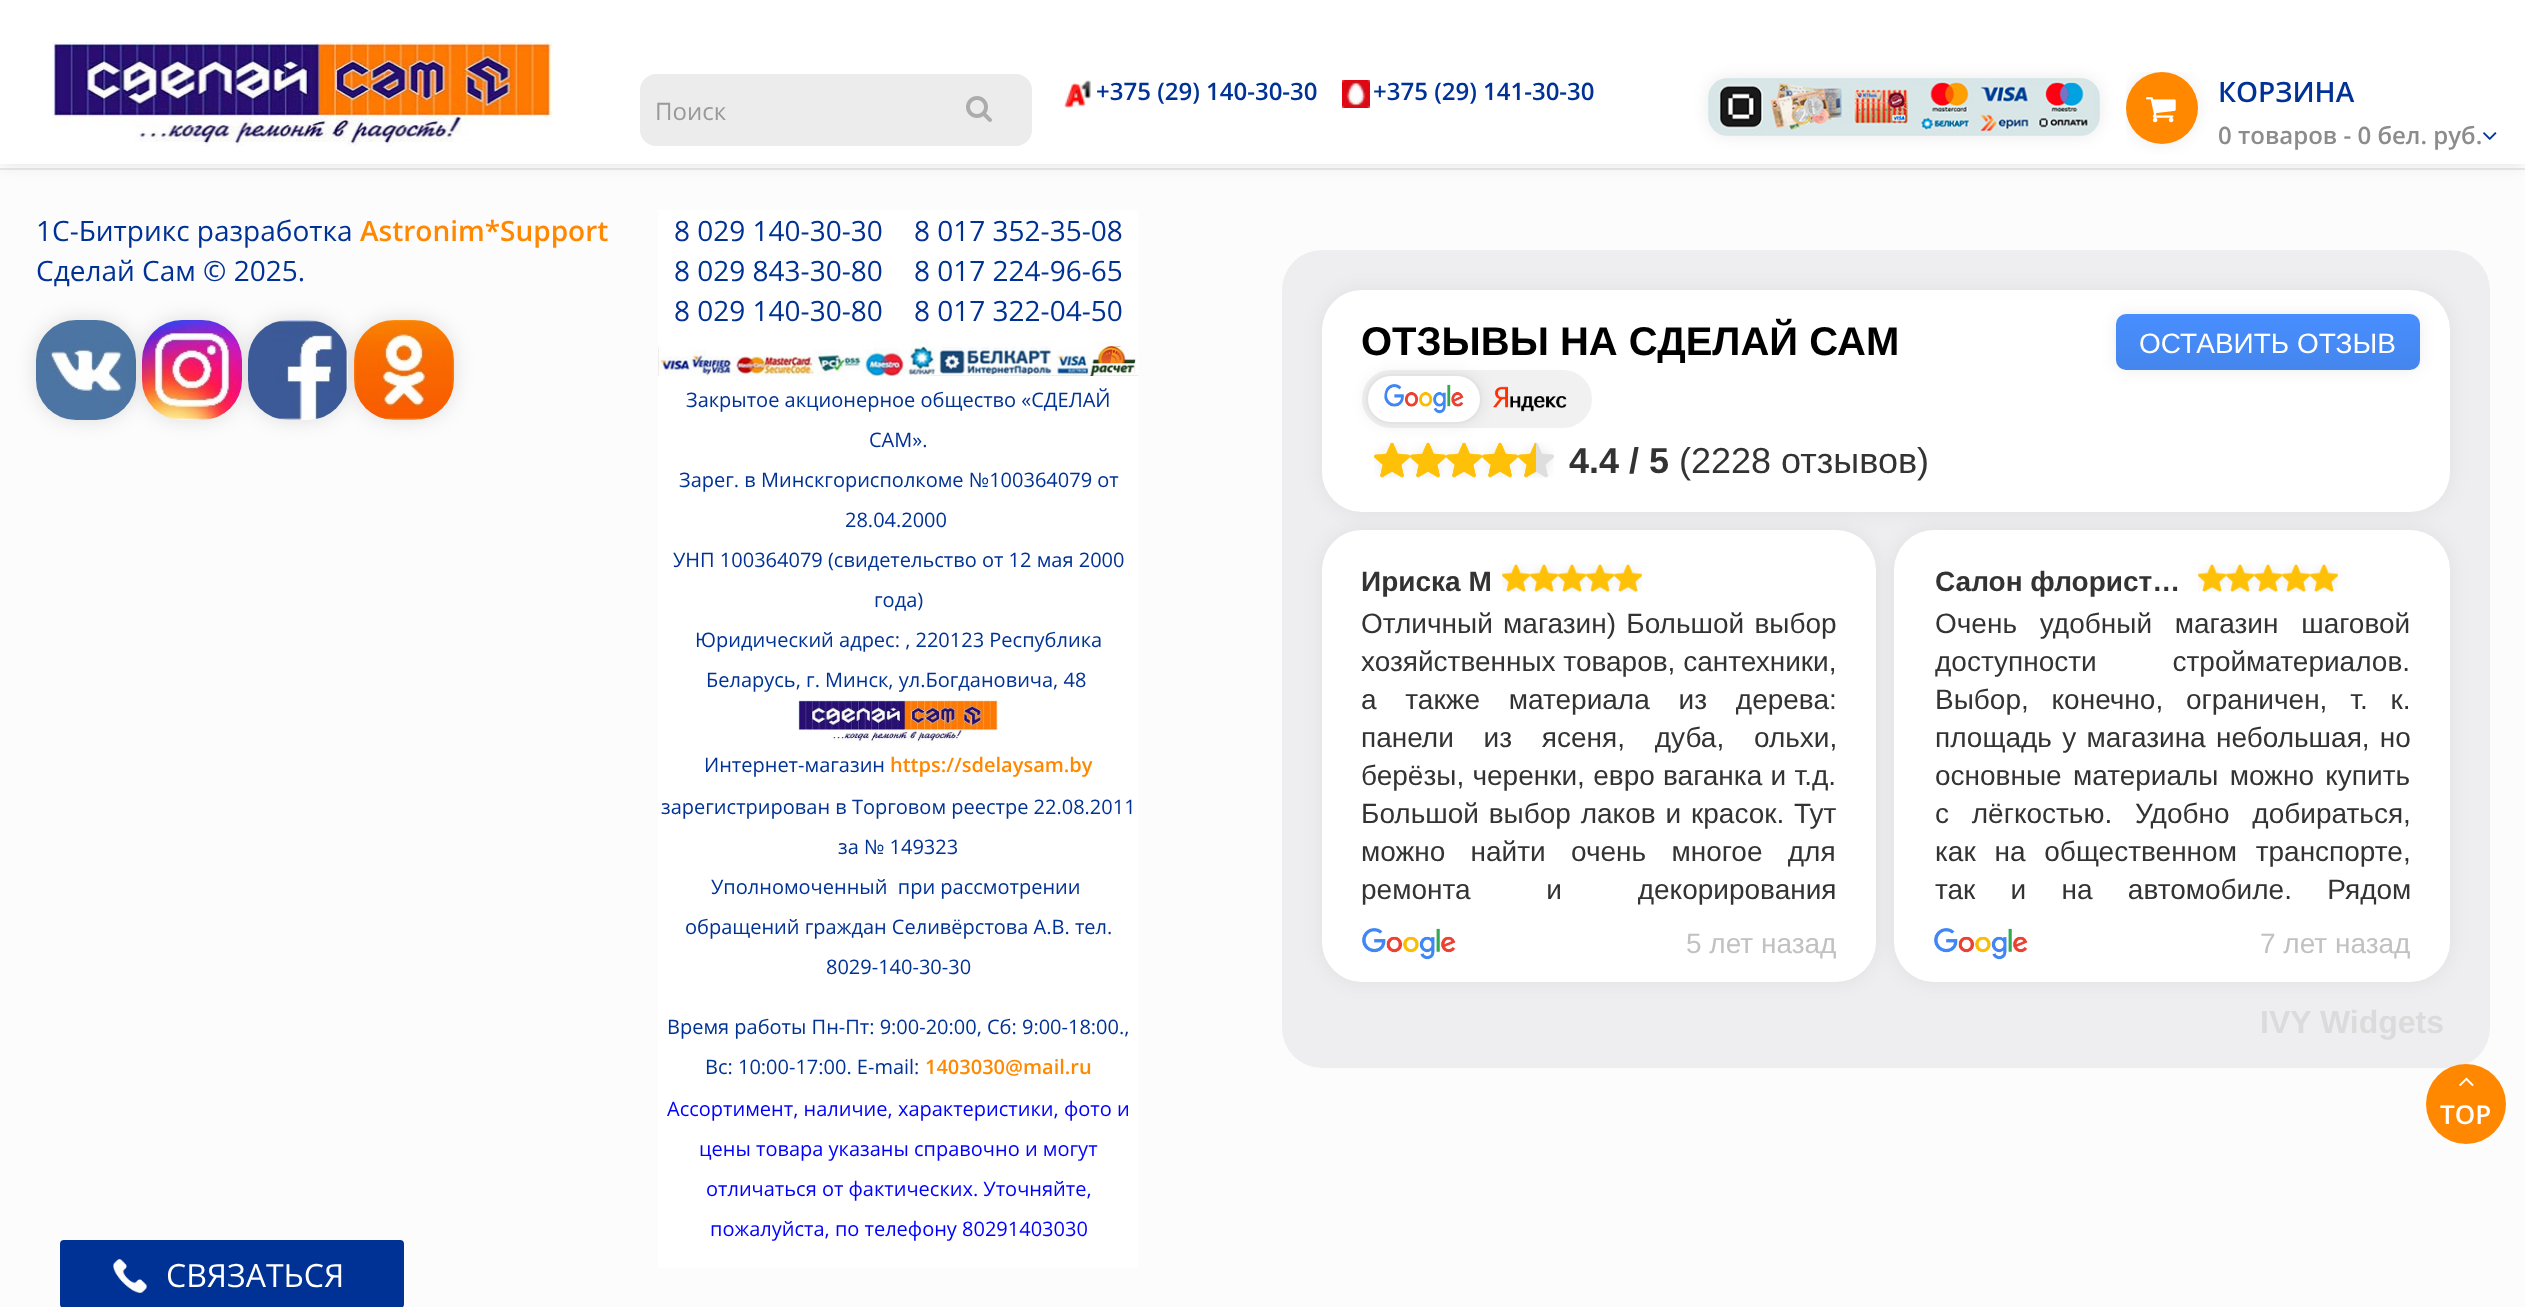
(async () => {
const canvas = document.querySelector("canvas")
canvas.width = 2525
canvas.height = 1307
const c = canvas.getContext("2d")
c.miterLimit = 4
c.fontKerning = "normal"
function T(s,x,y){c.fillText(s,x,y)}
function R(x,y,w,h){c.fillRect(x,y,w,h)}
function Q(x,y,w,h,r){c.beginPath();c.roundRect(x,y,w,h,r);c.fill()}
async function I(src,x,y,w,h){const img=new Image();img.src=src;await img.decode();c.drawImage(img,x,y,w,h)}
let gradient
c.fillStyle="#fff"
R(0,0,2525,1307)
c.fillStyle="#fcfcfc"
R(0,170,2525,1137)
c.fillStyle="#e9e9e9"
R(0,168,2525,2)
c.fillStyle="#0000001f"
c.filter="blur(8px)"
c.beginPath()
c.rect(0,0,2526,164)
c.fill()
c.filter="none"
c.fillStyle="#fff"
R(0,0,2525,164)
await I("1.png",52,42,501,104)
await I("2.png",1064,80,27,28)
c.font="600 24px Open Sans"
c.fillStyle="#003295"
T("+375 (29) 140-30-30",1096,100)
await I("3.png",1342,80,28,28)
T("+375 (29) 141-30-30",1373,100)
c.fillStyle="#00000014"
c.filter="blur(8px)"
c.beginPath()
c.roundRect(1708,78,392,58,20)
c.fill()
c.filter="none"
await I("4.png",1708,78,392,58)
c.save()
c.beginPath()
c.rect(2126,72,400,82)
c.clip()
c.filter="blur(8px)"
c.beginPath()
c.roundRect(2126,72,72,72,36)
c.fill()
c.filter="none"
c.restore()
c.fillStyle="#f80"
c.beginPath()
c.arc(2162,108,36,0,7)
c.fill()
await I("5.png",2146,97,30,26)
c.font="600 28px Open Sans"
c.fillStyle="#003295"
T("КОРЗИНА",2218,102)
c.font="600 24px Open Sans"
c.fillStyle="#8c8c8c"
T("0 товаров - 0 бел. руб.",2218,144)
await I("6.png",2483,132,14,8)
c.fillStyle="#ececec"
Q(640,74,392,72,16)
c.font="24px Open Sans"
c.fillStyle="#999"
T("Поиск",655,120)
await I("7.png",966,96,26,26)
c.font="28px Open Sans"
c.fillStyle="#003295"
T("1C-Битрикс разработка",36,241)
c.font="600 28px Open Sans"
c.fillStyle="#f80"
T("Astronim*Support",360,241)
c.font="28px Open Sans"
c.fillStyle="#003295"
T("Сделай Сам © 2025.",36,281)
c.fillStyle="#0000001f"
c.filter="blur(10px)"
c.beginPath()
c.roundRect(36,320,100,100,40)
c.fill()
c.filter="none"
await I("8.png",36,320,100,100)
c.filter="blur(10px)"
c.beginPath()
c.roundRect(142,320,100,100,40)
c.fill()
c.filter="none"
await I("9.png",142,320,100,100)
c.filter="blur(10px)"
c.beginPath()
c.roundRect(248,320,100,100,40)
c.fill()
c.filter="none"
await I("10.png",248,320,100,100)
c.filter="blur(10px)"
c.beginPath()
c.roundRect(354,320,100,100,40)
c.fill()
c.filter="none"
await I("11.png",354,320,100,100)
c.fillStyle="#fff"
R(658,210,480,1058)
c.fillStyle="#003295"
T("8 029 140-30-30",674,241)
T("8 029 843-30-80",674,281)
T("8 029 140-30-80",674,321)
T("8 017 352-35-08",914,241)
T("8 017 224-96-65",914,281)
T("8 017 322-04-50",914,321)
await I("12.png",658,341,480,35)
c.font="20px Open Sans"
T("Закрытое акционерное общество «СДЕЛАЙ",686,407)
T("САМ».",869,447)
T("Зарег. в Минскгорисполкоме №100364079 от",679,487)
T("28.04.2000",845,527)
T("УНП 100364079 (свидетельство от 12 мая 2000",673,567)
T("года)",874,607)
T("Юридический адрес: , 220123 Республика",695,647)
T("Беларусь, г. Минск, ул.Богдановича, 48",706,687)
await I("13.png",798,700,200,42)
T("Интернет-магазин",704,772)
c.font="600 20px Open Sans"
c.fillStyle="#f80"
T("https://sdelaysam.by",890,772)
c.font="20px Open Sans"
c.fillStyle="#003295"
T("зарегистрирован в Торговом реестре 22.08.2011",661,814)
T("за № 149323",838,854)
T("Уполномоченный  при рассмотрении",711,894)
T("обращений граждан Селивёрстова А.В. тел.",685,934)
T("8029-140-30-30",826,974)
T("Время работы Пн-Пт: 9:00-20:00, Сб: 9:00-18:00.,",667,1034)
T("Вс: 10:00-17:00. E-mail:",705,1074)
c.font="600 20px Open Sans"
c.fillStyle="#f80"
T("1403030@mail.ru",925,1074)
c.font="20px Open Sans"
c.fillStyle="#00f"
T("Ассортимент, наличие, характеристики, фото и",667,1116)
T("цены товара указаны справочно и могут",699,1156)
T("отличаться от фактических. Уточняйте,",706,1196)
T("пожалуйста, по телефону 80291403030",710,1236)
c.fillStyle="#eeeef0"
Q(1282,250,1208,818,40)
c.fillStyle="#0000000f"
c.filter="blur(10px)"
c.beginPath()
c.roundRect(1322,290,1128,222,40)
c.fill()
c.filter="none"
c.fillStyle="#fff"
Q(1322,290,1128,222,40)
c.font="bold 40px Liberation Sans"
c.fillStyle="#000"
T("ОТЗЫВЫ НА СДЕЛАЙ САМ",1361,355)
c.fillStyle="#f1f1f1"
c.beginPath()
c.roundRect(1364,372,226,54,27)
c.fill()
c.strokeStyle="#f1f1f1"
c.lineWidth=4
c.stroke()
await I("15.png",1493,386,74,26)
await I("16.png",1374,442,36,36)
await I("16.png",1410,442,36,36)
await I("16.png",1446,442,36,36)
await I("16.png",1482,442,36,36)
c.fillStyle="#00000014"
c.filter="blur(8px)"
c.beginPath()
c.roundRect(1366,374,116,50,25)
c.fill()
c.filter="none"
c.fillStyle="#fff"
c.beginPath()
c.roundRect(1367,375,114,48,24)
c.fill()
c.strokeStyle="#e3e3e3"
c.lineWidth=2
c.stroke()
await I("14.png",1384,384,80,30)
await I("17.png",1518,442,36,36)
c.font="bold 36px Liberation Sans"
c.fillStyle="#333"
T("4.4 / 5",1569,473)
c.font="36px Liberation Sans"
T("(2228 отзывов)",1679,473)
c.fillStyle="#00000012"
c.filter="blur(8px)"
c.beginPath()
c.roundRect(2116,314,304,56,10)
c.fill()
c.filter="none"
gradient = c.createLinearGradient(2268,314,2268,370)
gradient.addColorStop(0,"#488eff")
gradient.addColorStop(1,"#4586ed")
c.fillStyle = gradient
Q(2116,314,304,56,10)
c.font="28px Liberation Sans"
c.fillStyle="#fff"
T("ОСТАВИТЬ ОТЗЫВ",2139,353)
c.fillStyle="#0000000f"
c.filter="blur(10px)"
c.beginPath()
c.roundRect(1322,530,554,452,40)
c.fill()
c.filter="none"
c.fillStyle="#fff"
Q(1322,530,554,452,40)
c.font="bold 28px Liberation Sans"
c.fillStyle="#333"
T("Ириска М",1361,591)
await I("18.png",1502,564,28,28)
await I("18.png",1530,564,28,28)
await I("18.png",1558,564,28,28)
await I("18.png",1586,564,28,28)
await I("18.png",1614,564,28,28)
c.wordSpacing="2.5px"
c.font="28px Liberation Sans"
T("Отличный магазин) Большой выбор",1361,633)
c.wordSpacing="0px"
T("хозяйственных товаров, сантехники,",1361,671)
c.wordSpacing="21px"
T("а также материала из дерева:",1361,709)
c.wordSpacing="22px"
T("панели из ясеня, дуба, ольхи,",1361,747)
c.wordSpacing="0.5px"
T("берёзы, черенки, евро ваганка и т.д.",1361,785)
c.wordSpacing="2px"
T("Большой выбор лаков и",1361,823)
T("красок. Тут",1691,823)
c.wordSpacing="17.5px"
T("можно найти очень многое для",1361,861)
c.wordSpacing="68px"
T("ремонта и декорирования",1361,899)
await I("19.png",1362,928,94,32)
c.wordSpacing="0px"
c.fillStyle="#c1c1c1"
T("5 лет назад",1686,953)
c.fillStyle="#0000000f"
c.filter="blur(10px)"
c.beginPath()
c.roundRect(1894,530,556,452,40)
c.fill()
c.filter="none"
c.fillStyle="#fff"
Q(1894,530,556,452,40)
c.font="bold 28px Liberation Sans"
c.fillStyle="#333"
T("Салон флорист…",1935,591)
await I("20.png",2198,564,28,28)
await I("20.png",2226,564,28,28)
await I("20.png",2254,564,28,28)
await I("20.png",2282,564,28,28)
await I("20.png",2310,564,28,28)
c.wordSpacing="15px"
c.font="28px Liberation Sans"
T("Очень удобный магазин шаговой",1935,633)
c.wordSpacing="68px"
T("доступности стройматериалов.",1935,671)
c.wordSpacing="15px"
T("Выбор, конечно, ограничен, т. к.",1935,709)
c.wordSpacing="2.5px"
T("площадь у магазина небольшая, но",1935,747)
c.wordSpacing="3.5px"
T("основные материалы можно купить",1935,785)
c.wordSpacing="15px"
T("с лёгкостью. Удобно добираться,",1935,823)
c.wordSpacing="11px"
T("как на общественном транспорте,",1935,861)
c.wordSpacing="27.5px"
T("так и на автомобиле. Рядом",1935,899)
await I("21.png",1934,928,94,32)
c.wordSpacing="0px"
c.fillStyle="#c1c1c1"
T("7 лет назад",2260,953)
c.font="bold 32px Liberation Sans"
c.fillStyle="#dbdbdb"
T("IVY Widgets",2260,1033)
c.fillStyle="#f80"
c.beginPath()
c.arc(2466,1104,40,0,7)
c.fill()
await I("22.png",2459,1077,15,9)
c.font="600 26px Open Sans"
c.fillStyle="#fff"
T("TOP",2440,1124)
c.fillStyle="#003295"
Q(60,1240,344,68,4)
await I("23.png",113,1259,34,34)
c.font="32px Open Sans"
c.fillStyle="#fff"
T("СВЯЗАТЬСЯ",166,1287)
})()
